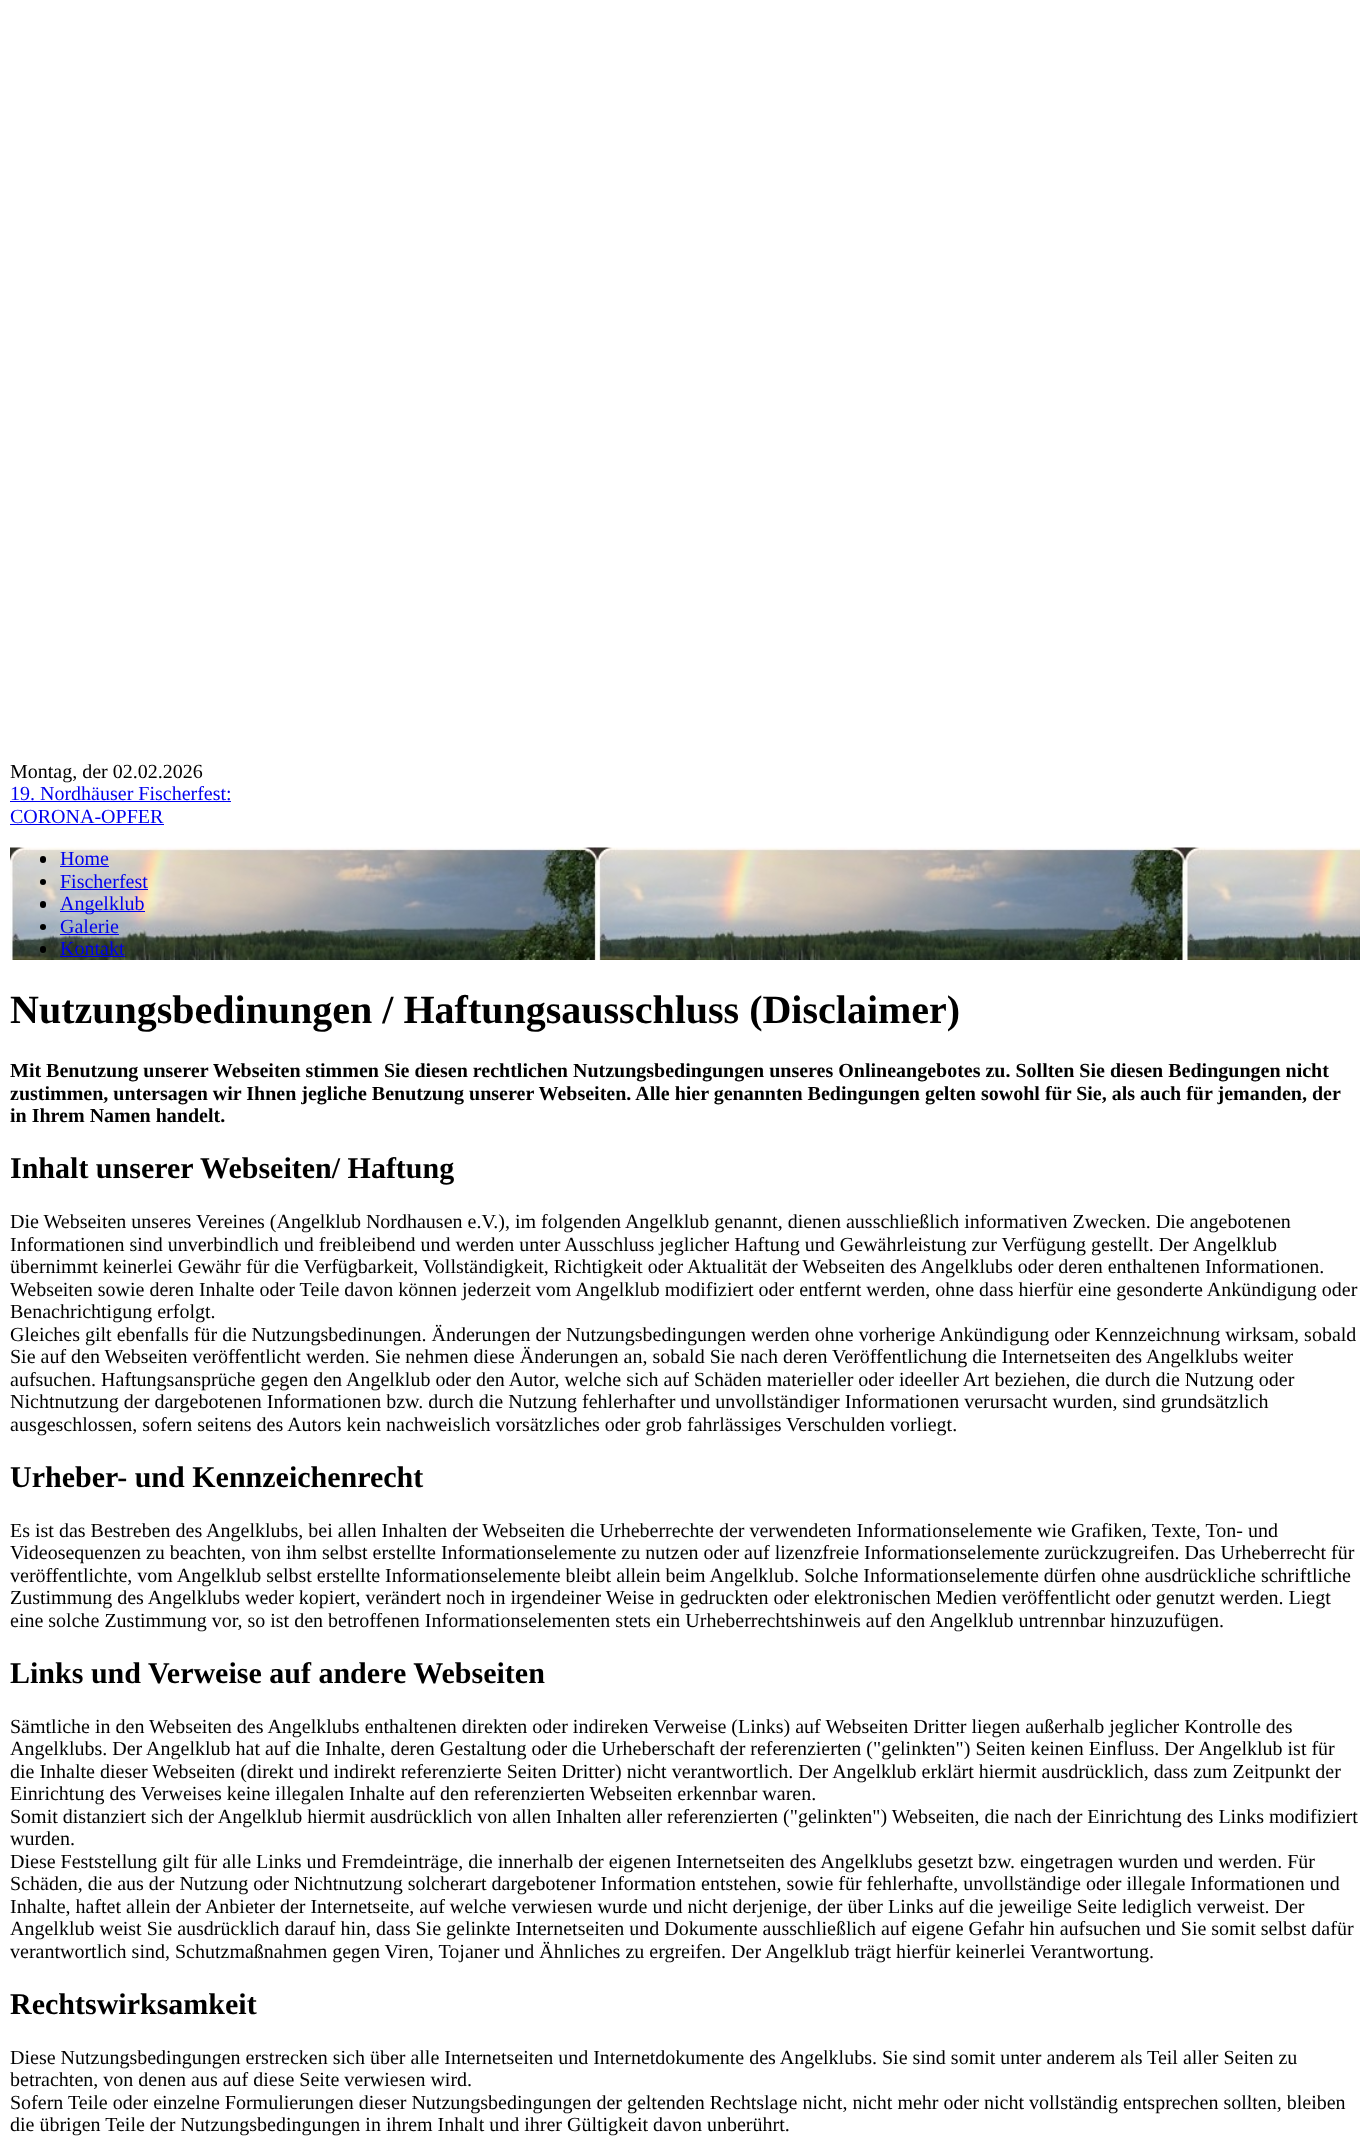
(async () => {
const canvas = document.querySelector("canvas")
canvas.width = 1369
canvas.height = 2136
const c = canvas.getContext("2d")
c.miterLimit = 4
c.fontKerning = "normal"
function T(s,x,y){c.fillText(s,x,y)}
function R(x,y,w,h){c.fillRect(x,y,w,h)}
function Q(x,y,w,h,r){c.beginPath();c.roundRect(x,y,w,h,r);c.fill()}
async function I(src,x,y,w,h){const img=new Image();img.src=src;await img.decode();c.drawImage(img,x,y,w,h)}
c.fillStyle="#fff"
R(0,0,1369,2136)
c.font="20px Liberation Serif"
c.fillStyle="#000"
T("Montag, der 02.02.2026",10,778)
c.fillStyle="#00e"
T("19. Nordhäuser Fischerfest:",10,800)
R(10,801,221,1)
T("CORONA-OPFER",10,823)
R(10,824,154,1)
await I("1.png",10,847,1350,113)
c.fillStyle="#000"
Q(40,856,6,7,3)
c.fillStyle="#00e"
T("Home",60,865)
R(60,866,49,1)
c.fillStyle="#000"
c.beginPath()
c.arc(43,882,3,0,7)
c.fill()
c.fillStyle="#00e"
T("Fischerfest",60,888)
R(60,889,88,1)
c.fillStyle="#000"
Q(40,901,6,7,3)
c.fillStyle="#00e"
R(60,911,85,1)
T("Angelklub",60,910)
c.fillStyle="#000"
c.beginPath()
c.arc(43,927,3,0,7)
c.fill()
c.fillStyle="#00e"
T("Galerie",60,933)
R(60,934,59,1)
c.fillStyle="#000"
Q(40,946,6,7,3)
c.fillStyle="#00e"
T("Kontakt",60,955)
R(60,956,65,1)
c.font="bold 40px Liberation Serif"
c.fillStyle="#000"
T("Nutzungsbedinungen / Haftungsausschluss (Disclaimer)",10,1023)
c.font="bold 20px Liberation Serif"
T("Mit Benutzung unserer Webseiten stimmen Sie diesen rechtlichen Nutzungsbedingungen unseres Onlineangebotes zu. Sollten Sie diesen Bedingungen nicht",10,1077)
T("zustimmen, untersagen wir Ihnen jegliche Benutzung unserer Webseiten. Alle hier genannten Bedingungen gelten sowohl für Sie, als auch für jemanden, der",10,1100)
T("in Ihrem Namen handelt.",10,1122)
c.font="bold 30px Liberation Serif"
T("Inhalt unserer Webseiten/ Haftung",10,1178)
c.font="20px Liberation Serif"
T("Die Webseiten unseres Vereines (Angelklub Nordhausen e.V.), im folgenden Angelklub genannt, dienen ausschließlich informativen Zwecken. Die angebotenen",10,1228)
T("Informationen sind unverbindlich und freibleibend und werden unter Ausschluss jeglicher Haftung und Gewährleistung zur Verfügung gestellt. Der Angelklub",10,1251)
T("übernimmt keinerlei Gewähr für die Verfügbarkeit, Vollständigkeit, Richtigkeit oder Aktualität der Webseiten des Angelklubs oder deren enthaltenen Informationen.",10,1273)
T("Webseiten sowie deren Inhalte oder Teile davon können jederzeit vom Angelklub modifiziert oder entfernt werden, ohne dass hierfür eine gesonderte Ankündigung oder",10,1296)
T("Benachrichtigung erfolgt.",10,1318)
T("Gleiches gilt ebenfalls für die Nutzungsbedinungen. Änderungen der Nutzungsbedingungen werden ohne vorherige Ankündigung oder Kennzeichnung wirksam, sobald",10,1341)
T("Sie auf den Webseiten veröffentlicht werden. Sie nehmen diese Änderungen an, sobald Sie nach deren Veröffentlichung die Internetseiten des Angelklubs weiter",10,1363)
T("aufsuchen. Haftungsansprüche gegen den Angelklub oder den Autor, welche sich auf Schäden materieller oder ideeller Art beziehen, die durch die Nutzung oder",10,1386)
T("Nichtnutzung der dargebotenen Informationen bzw. durch die Nutzung fehlerhafter und unvollständiger Informationen verursacht wurden, sind grundsätzlich",10,1408)
T("ausgeschlossen, sofern seitens des Autors kein nachweislich vorsätzliches oder grob fahrlässiges Verschulden vorliegt.",10,1431)
c.font="bold 30px Liberation Serif"
T("Urheber- und Kennzeichenrecht",10,1487)
c.font="20px Liberation Serif"
T("Es ist das Bestreben des Angelklubs, bei allen Inhalten der Webseiten die Urheberrechte der verwendeten Informationselemente wie Grafiken, Texte, Ton- und",10,1537)
T("Videosequenzen zu beachten, von ihm selbst erstellte Informationselemente zu nutzen oder auf lizenzfreie Informationselemente zurückzugreifen. Das Urheberrecht für",10,1559)
T("veröffentlichte, vom Angelklub selbst erstellte Informationselemente bleibt allein beim Angelklub. Solche Informationselemente dürfen ohne ausdrückliche schriftliche",10,1582)
T("Zustimmung des Angelklubs weder kopiert, verändert noch in irgendeiner Weise in gedruckten oder elektronischen Medien veröffentlicht oder genutzt werden. Liegt",10,1604)
T("eine solche Zustimmung vor, so ist den betroffenen Informationselementen stets ein Urheberrechtshinweis auf den Angelklub untrennbar hinzuzufügen.",10,1627)
c.font="bold 30px Liberation Serif"
T("Links und Verweise auf andere Webseiten",10,1683)
c.font="20px Liberation Serif"
T("Sämtliche in den Webseiten des Angelklubs enthaltenen direkten oder indireken Verweise (Links) auf Webseiten Dritter liegen außerhalb jeglicher Kontrolle des",10,1733)
T("Angelklubs. Der Angelklub hat auf die Inhalte, deren Gestaltung oder die Urheberschaft der referenzierten (\"gelinkten\") Seiten keinen Einfluss. Der Angelklub ist für",10,1755)
T("die Inhalte dieser Webseiten (direkt und indirekt referenzierte Seiten Dritter) nicht verantwortlich. Der Angelklub erklärt hiermit ausdrücklich, dass zum Zeitpunkt der",10,1778)
T("Einrichtung des Verweises keine illegalen Inhalte auf den referenzierten Webseiten erkennbar waren.",10,1800)
T("Somit distanziert sich der Angelklub hiermit ausdrücklich von allen Inhalten aller referenzierten (\"gelinkten\") Webseiten, die nach der Einrichtung des Links modifiziert",10,1823)
T("wurden.",10,1845)
T("Diese Feststellung gilt für alle Links und Fremdeinträge, die innerhalb der eigenen Internetseiten des Angelklubs gesetzt bzw. eingetragen wurden und werden. Für",10,1868)
T("Schäden, die aus der Nutzung oder Nichtnutzung solcherart dargebotener Information entstehen, sowie für fehlerhafte, unvollständige oder illegale Informationen und",10,1890)
T("Inhalte, haftet allein der Anbieter der Internetseite, auf welche verwiesen wurde und nicht derjenige, der über Links auf die jeweilige Seite lediglich verweist. Der",10,1913)
T("Angelklub weist Sie ausdrücklich darauf hin, dass Sie gelinkte Internetseiten und Dokumente ausschließlich auf eigene Gefahr hin aufsuchen und Sie somit selbst dafür",10,1935)
T("verantwortlich sind, Schutzmaßnahmen gegen Viren, Tojaner und Ähnliches zu ergreifen. Der Angelklub trägt hierfür keinerlei Verantwortung.",10,1958)
c.font="bold 30px Liberation Serif"
T("Rechtswirksamkeit",10,2014)
c.font="20px Liberation Serif"
T("Diese Nutzungsbedingungen erstrecken sich über alle Internetseiten und Internetdokumente des Angelklubs. Sie sind somit unter anderem als Teil aller Seiten zu",10,2064)
T("betrachten, von denen aus auf diese Seite verwiesen wird.",10,2086)
T("Sofern Teile oder einzelne Formulierungen dieser Nutzungsbedingungen der geltenden Rechtslage nicht, nicht mehr oder nicht vollständig entsprechen sollten, bleiben",10,2109)
T("die übrigen Teile der Nutzungsbedingungen in ihrem Inhalt und ihrer Gültigkeit davon unberührt.",10,2131)
})()
